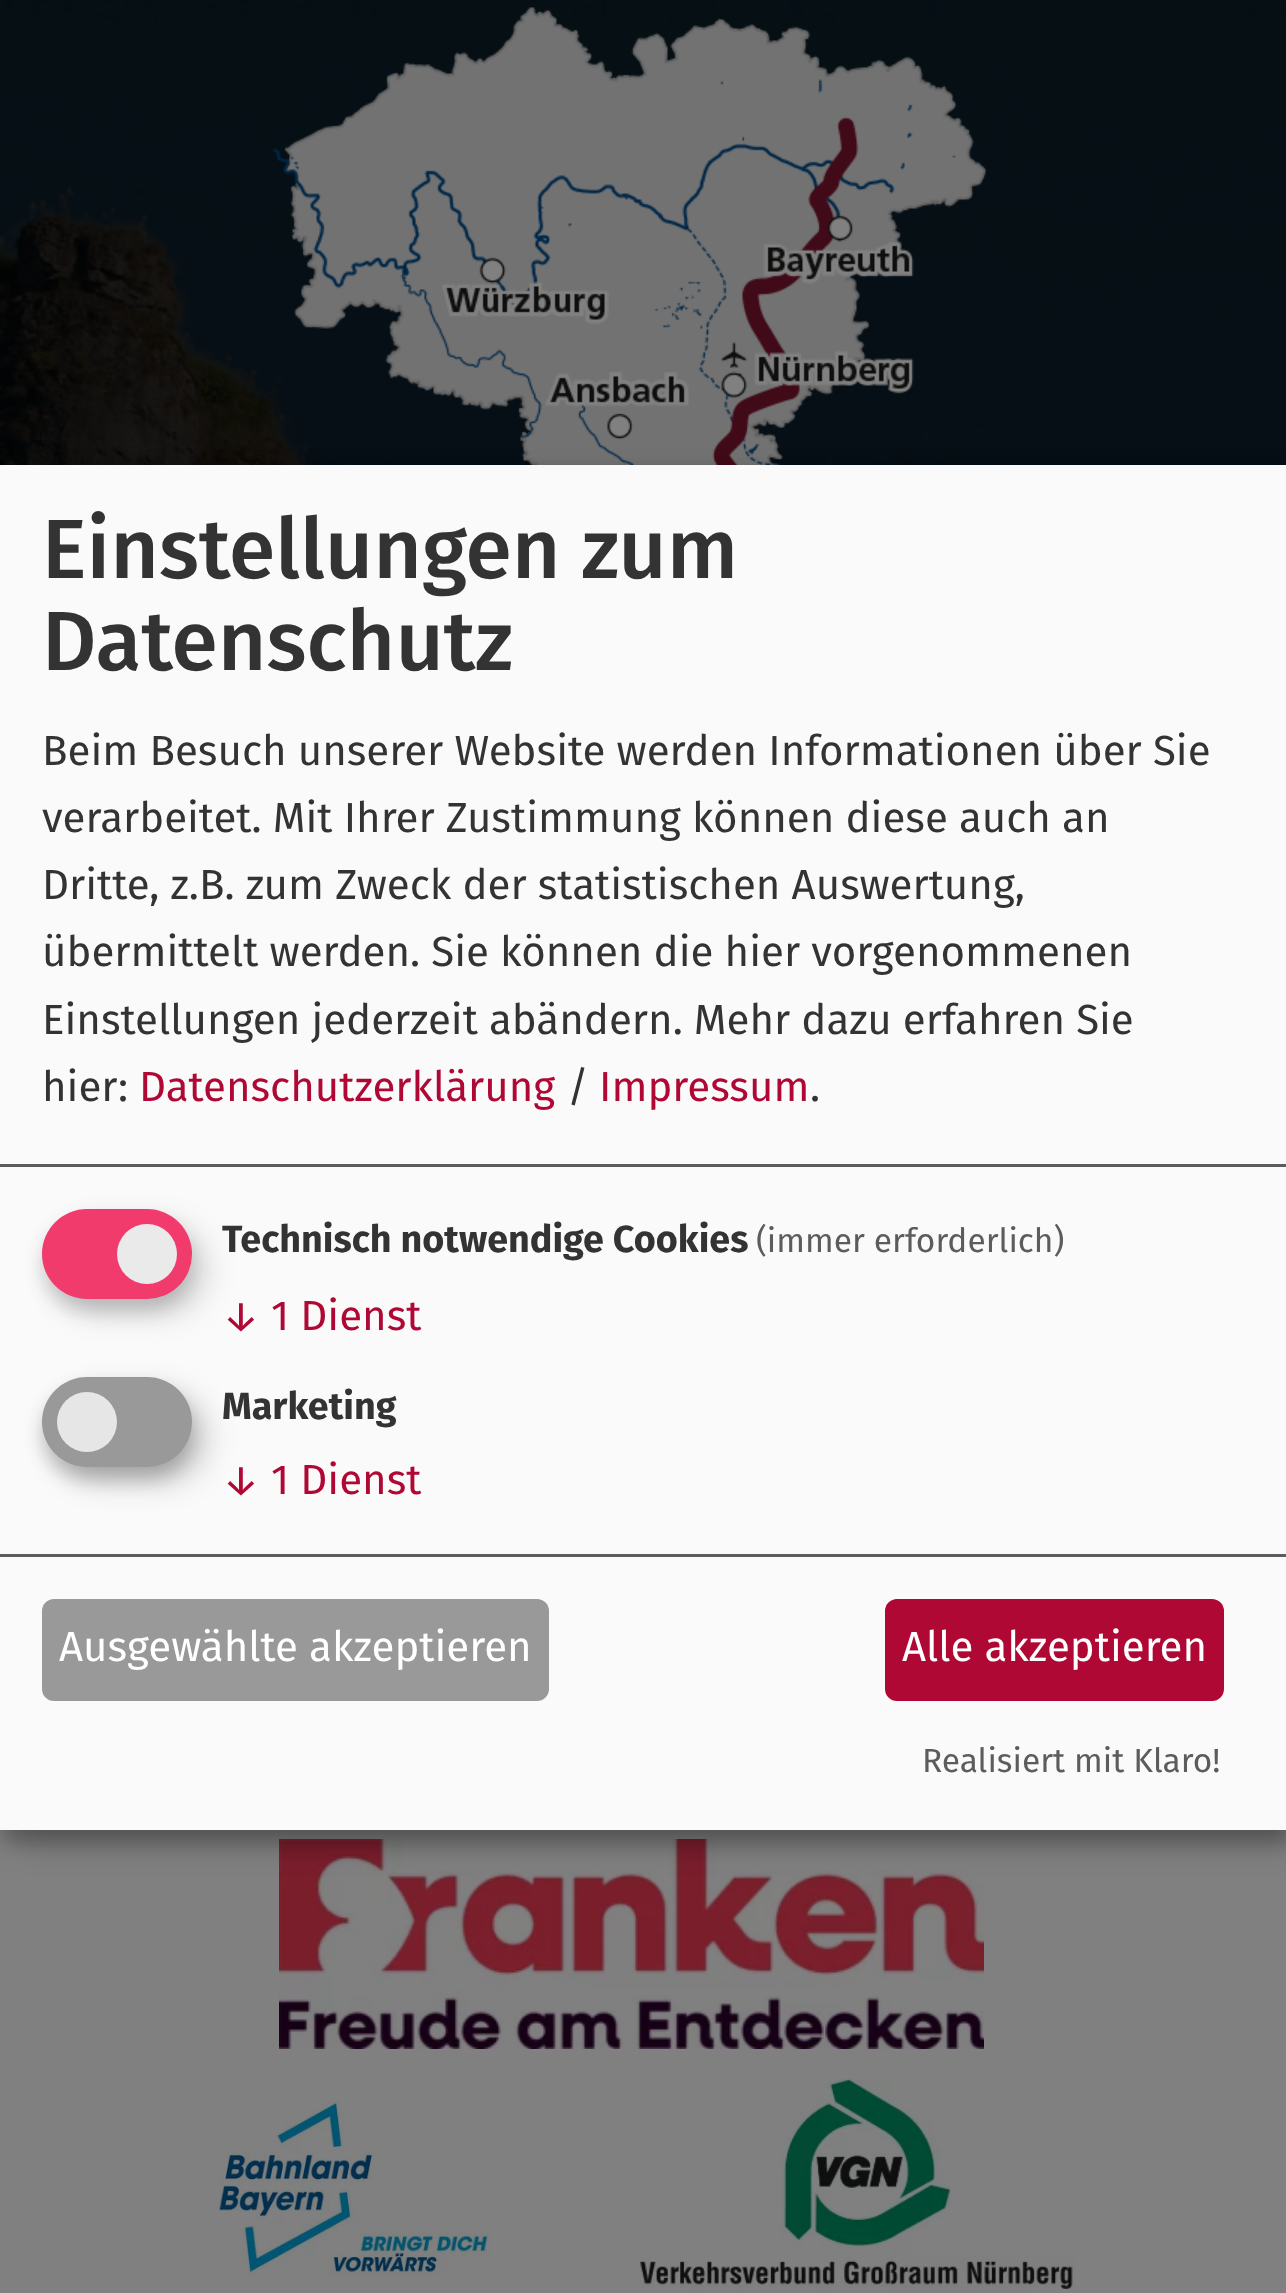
(async () => {
const canvas = document.querySelector("canvas")
canvas.width = 1286
canvas.height = 2293
const c = canvas.getContext("2d")
c.miterLimit = 4
c.fontKerning = "normal"
function T(s,x,y){c.fillText(s,x,y)}
function R(x,y,w,h){c.fillRect(x,y,w,h)}
function Q(x,y,w,h,r){c.beginPath();c.roundRect(x,y,w,h,r);c.fill()}
async function I(src,x,y,w,h){const img=new Image();img.src=src;await img.decode();c.drawImage(img,x,y,w,h)}
c.fillStyle="#fff"
R(0,0,1286,2293)
await I("1.png",0,0,1286,465)
c.fillStyle="#000000cc"
R(0,0,1286,465)
await I("2.png",272,7,714,458)
c.fillStyle="#808080"
R(0,1830,1286,463)
await I("3.png",279,1839,705,210)
await I("4.png",219,2101,272,176)
await I("5.png",639,2079,436,210)
c.fillStyle="#00000030"
c.filter="blur(15px)"
c.beginPath()
c.rect(15,480,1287,1365)
c.fill()
c.filter="none"
c.fillStyle="#00000033"
c.filter="blur(9px)"
c.beginPath()
c.rect(0,477,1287,1365)
c.fill()
c.filter="none"
c.fillStyle="#fafafa"
R(0,465,1286,1365)
c.fillStyle="#5c5c5c"
R(0,1164,1286,3)
c.font="500 84px Fira Sans"
c.fillStyle="#333"
T("Einstellungen zum",42,578)
T("Datenschutz",42,670)
c.font="42px Fira Sans"
T("Beim Besuch unserer Website werden Informationen über Sie",42,765)
T("verarbeitet. Mit Ihrer Zustimmung können diese auch an",42,832)
T("Dritte, z.B. zum Zweck der statistischen Auswertung,",42,899)
T("übermittelt werden. Sie können die hier vorgenommenen",42,966)
T("Einstellungen jederzeit abändern. Mehr dazu erfahren Sie",42,1034)
T("hier:",42,1101)
c.fillStyle="#b00835"
T("Datenschutzerklärung",139,1101)
c.fillStyle="#333"
T("/",567,1101)
c.fillStyle="#b00835"
T("Impressum",599,1101)
c.fillStyle="#333"
T(".",810,1101)
c.fillStyle="#00000026"
c.filter="blur(15px)"
c.beginPath()
c.roundRect(57,1224,150,90,45)
c.fill()
c.filter="none"
c.fillStyle="#32323233"
c.filter="blur(9px)"
c.beginPath()
c.roundRect(42,1221,150,90,45)
c.fill()
c.filter="none"
c.fillStyle="#f03b6c"
Q(42,1209,150,90,45)
c.fillStyle="#eaeaea"
c.beginPath()
c.arc(147,1254,30,0,7)
c.fill()
c.font="bold 37.75px Fira Sans"
c.fillStyle="#333"
T("Technisch notwendige Cookies",222,1252)
c.font="33.5px Fira Sans"
c.fillStyle="#5c5c5c"
T("(immer erforderlich)",756,1252)
c.font="42px Fira Sans"
c.fillStyle="#b00835"
T("↓ 1 Dienst",222,1330)
c.fillStyle="#00000030"
c.filter="blur(15px)"
c.beginPath()
c.roundRect(57,1392,150,90,45)
c.fill()
c.filter="none"
c.fillStyle="#00000033"
c.filter="blur(9px)"
c.beginPath()
c.roundRect(42,1389,150,90,45)
c.fill()
c.filter="none"
c.fillStyle="#999"
Q(42,1377,150,90,45)
c.fillStyle="#e6e6e6"
c.beginPath()
c.arc(87,1422,30,0,7)
c.fill()
c.font="bold 37.75px Fira Sans"
c.fillStyle="#333"
T("Marketing",222,1419)
c.font="42px Fira Sans"
c.fillStyle="#b00835"
T("↓ 1 Dienst",222,1494)
c.fillStyle="#5c5c5c"
R(0,1554,1286,3)
c.fillStyle="#999"
Q(42,1599,507,102,12)
c.fillStyle="#fff"
T("Ausgewählte akzeptieren",59,1661)
c.fillStyle="#b00835"
Q(885,1599,339,102,12)
c.fillStyle="#fff"
T("Alle akzeptieren",902,1661)
c.font="33.5px Fira Sans"
c.fillStyle="#5c5c5c"
T("Realisiert mit Klaro!",922,1772)
})()
